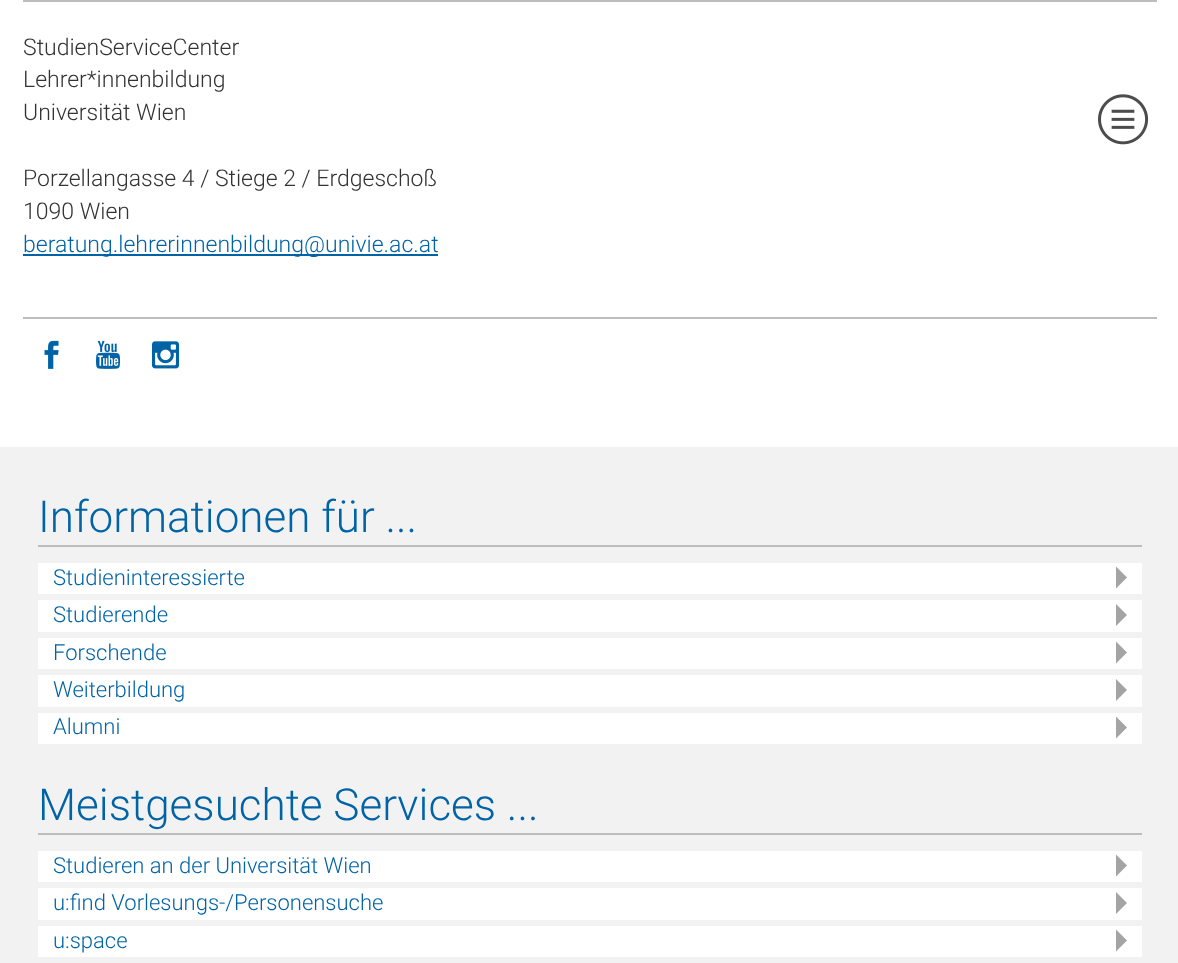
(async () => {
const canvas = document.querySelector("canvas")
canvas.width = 1178
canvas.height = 963
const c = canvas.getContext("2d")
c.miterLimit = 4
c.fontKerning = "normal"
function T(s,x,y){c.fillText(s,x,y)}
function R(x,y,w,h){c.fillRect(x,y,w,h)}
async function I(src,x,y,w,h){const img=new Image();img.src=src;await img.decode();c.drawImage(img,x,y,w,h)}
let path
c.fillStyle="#fff"
R(0,0,1178,963)
c.fillStyle="#bdbdbd"
R(23,0,1134,2)
c.font="300 23px Roboto"
c.fillStyle="#333"
T("StudienServiceCenter",23,55)
T("Lehrer*innenbildung",23,87)
T("Universität Wien",23,120)
T("Porzellangasse 4 / Stiege 2 / Erdgeschoß",23,186)
T("1090 Wien",23,219)
c.fillStyle="#0063a6"
R(23,254,415,2)
T("beratung.lehrerinnenbildung@univie.ac.at",23,252)
c.fillStyle="#bdbdbd"
R(23,317,1134,2)
await I("1.png",44,340,15,29)
await I("2.png",96,340,25,29)
await I("3.png",151,341,29,28)
await I("4.png",1098,94,51,51)
c.fillStyle="#f2f2f2"
R(0,447,1178,516)
c.fillStyle="#bdbdbd"
R(38,545,1104,2)
c.font="300 44px Roboto"
c.fillStyle="#0063a6"
T("Informationen für ...",38,532)
c.fillStyle="#fff"
R(38,563,1104,31)
c.font="300 22px Roboto"
c.fillStyle="#0063a6"
T("Studieninteressierte",53,585)
c.fillStyle="#a4a4a4"
path = new Path2D("M1116 566.5v22l11-11z")
c.fill(path)
c.fillStyle="#fff"
R(38,600,1104,32)
c.fillStyle="#0063a6"
T("Studierende",53,622)
c.fillStyle="#a4a4a4"
path = new Path2D("M1116 604v22l11-11z")
c.fill(path)
c.fillStyle="#fff"
R(38,638,1104,31)
c.fillStyle="#0063a6"
T("Forschende",53,660)
c.fillStyle="#a4a4a4"
path = new Path2D("M1116 641.5v22l11-11z")
c.fill(path)
c.fillStyle="#fff"
R(38,675,1104,32)
c.fillStyle="#0063a6"
T("Weiterbildung",53,697)
c.fillStyle="#a4a4a4"
path = new Path2D("M1116 679v22l11-11z")
c.fill(path)
c.fillStyle="#fff"
R(38,713,1104,31)
c.fillStyle="#0063a6"
T("Alumni",53,734)
c.fillStyle="#a4a4a4"
path = new Path2D("M1116 716.5v22l11-11z")
c.fill(path)
c.fillStyle="#bdbdbd"
R(38,833,1104,2)
c.font="300 44px Roboto"
c.fillStyle="#0063a6"
T("Meistgesuchte Services ...",38,820)
c.fillStyle="#fff"
R(38,851,1104,31)
c.font="300 22px Roboto"
c.fillStyle="#0063a6"
T("Studieren an der Universität Wien",53,873)
c.fillStyle="#a4a4a4"
path = new Path2D("M1116 854.5v22l11-11z")
c.fill(path)
c.fillStyle="#fff"
R(38,888,1104,32)
c.fillStyle="#0063a6"
T("u:find Vorlesungs-/Personensuche",53,910)
c.fillStyle="#a4a4a4"
path = new Path2D("M1116 892v22l11-11z")
c.fill(path)
c.fillStyle="#fff"
R(38,926,1104,31)
c.fillStyle="#0063a6"
T("u:space",53,948)
c.fillStyle="#a4a4a4"
path = new Path2D("M1116 929.5v22l11-11z")
c.fill(path)
})()
